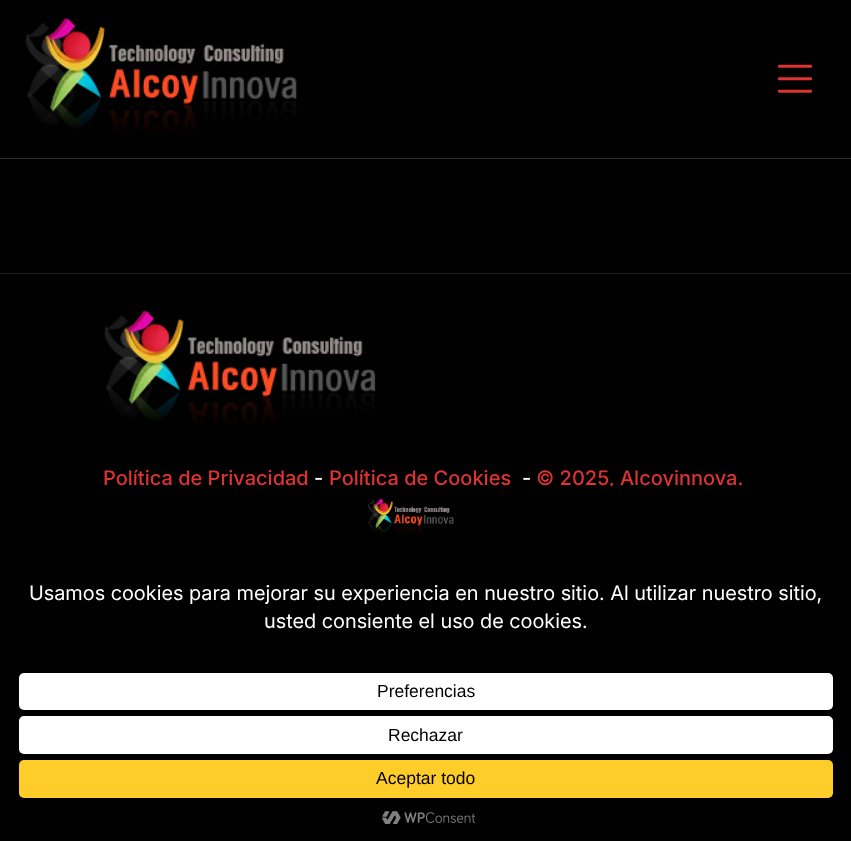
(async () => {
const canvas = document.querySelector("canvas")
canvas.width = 851
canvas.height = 841
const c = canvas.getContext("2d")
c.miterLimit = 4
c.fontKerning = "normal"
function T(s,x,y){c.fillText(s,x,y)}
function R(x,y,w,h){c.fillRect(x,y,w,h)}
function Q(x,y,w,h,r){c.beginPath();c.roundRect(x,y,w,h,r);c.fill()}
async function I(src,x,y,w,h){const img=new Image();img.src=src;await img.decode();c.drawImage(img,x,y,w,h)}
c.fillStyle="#010101"
R(0,0,851,841)
c.fillStyle="#302e2e"
R(0,158,851,1)
await I("1.png",25,18,272,115)
await I("2.png",777,64,36,29)
c.fillStyle="#1f1f1f"
R(0,273,851,1)
await I("3.png",104,311,272,115)
c.font="500 20px Inter"
c.fillStyle="#d33"
T("Política de Privacidad",103,485)
c.fillStyle="#fff"
T("-",314,485)
c.fillStyle="#d33"
T("Política de Cookies",329,485)
c.fillStyle="#fff"
T("-",522,485)
c.fillStyle="#d33"
T("© 2025, Alcoyinnova.",536,485)
c.fillStyle="#000"
R(610,486,60,4)
await I("4.png",367,498,87,36)
c.font="20px Inter"
c.fillStyle="#fff"
T("Usamos cookies para mejorar su experiencia en nuestro sitio. Al utilizar nuestro sitio,",29,600)
T("usted consiente el uso de cookies.",264,628)
Q(19,673,814,37,5)
c.font="17.5px Liberation Sans"
c.fillStyle="#000"
T("Preferencias",377,697)
c.fillStyle="#fff"
Q(19,716,814,38,5)
c.fillStyle="#000"
T("Rechazar",388,741)
c.fillStyle="#ffcd2a"
Q(19,760,814,38,5)
c.fillStyle="#000"
T("Aceptar todo",376,784)
await I("5.png",382,811,93,13)
})()
